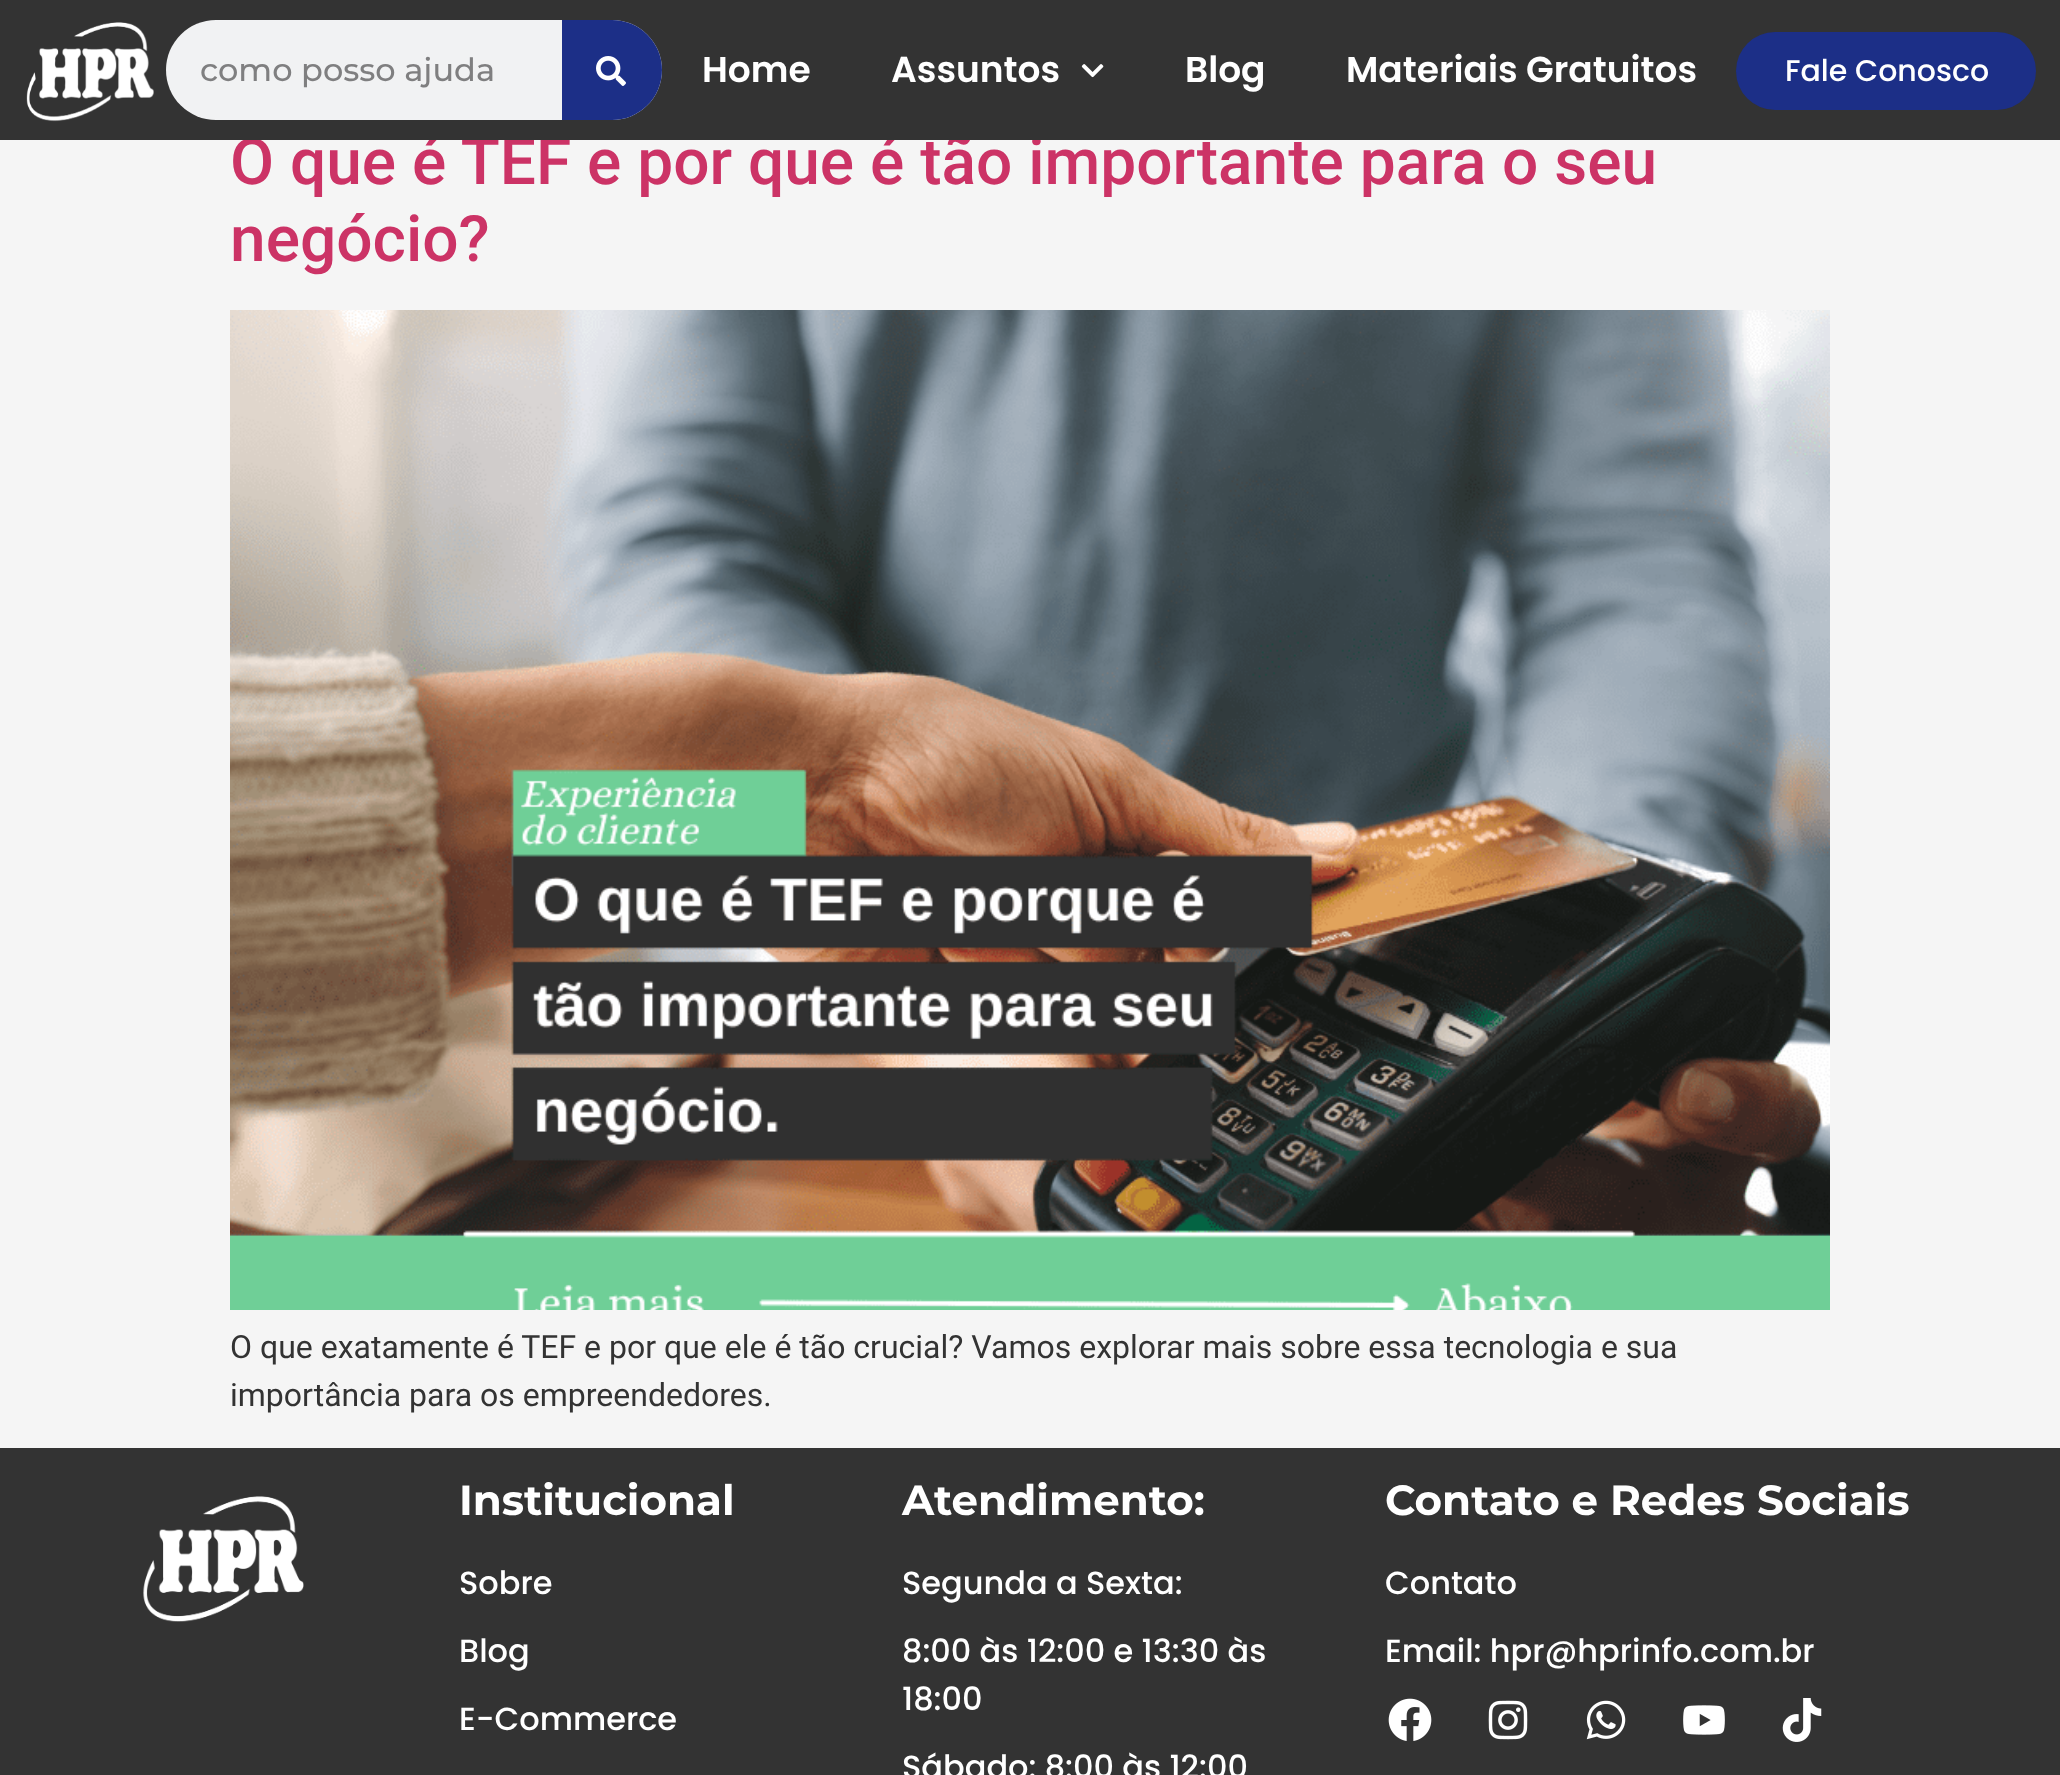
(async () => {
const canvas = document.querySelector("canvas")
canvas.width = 2060
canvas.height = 1775
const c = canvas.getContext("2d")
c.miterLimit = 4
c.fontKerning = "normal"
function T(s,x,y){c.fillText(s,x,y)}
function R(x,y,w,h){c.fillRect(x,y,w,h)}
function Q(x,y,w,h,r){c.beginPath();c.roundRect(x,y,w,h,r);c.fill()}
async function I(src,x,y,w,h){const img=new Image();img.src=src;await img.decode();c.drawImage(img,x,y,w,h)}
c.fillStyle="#f5f5f5"
R(0,0,2060,1775)
c.font="500 64px Roboto"
c.fillStyle="#c36"
T("O que é TEF e por que é tão importante para o seu",230,184)
c.fillStyle="#333"
R(0,0,2060,140)
await I("1.png",26,22,128,100)
c.fillStyle="#f1f2f3"
Q(166,20,496,100,50)
c.font="500 32px Montserrat"
c.fillStyle="#7f7f80"
T("como posso ajuda",200,81)
c.fillStyle="#1c2f87"
c.beginPath()
c.roundRect(562,20,100,100,[0,50,50,0])
c.fill()
await I("2.png",596,56,30,30)
c.font="600 36px Poppins"
c.fillStyle="#fff"
T("Home",702,82)
T("Assuntos",891,82)
await I("3.png",1081,64,23,14)
T("Blog",1185,82)
T("Materiais Gratuitos",1346,82)
c.fillStyle="#1c2f87"
Q(1736,32,300,78,39)
c.font="500 30px Poppins"
c.fillStyle="#fff"
T("Fale Conosco",1785,81)
c.font="500 64px Roboto"
c.fillStyle="#c36"
T("negócio?",230,261)
await I("4.png",230,310,1600,1000)
c.font="32px Roboto"
c.fillStyle="#333"
T("O que exatamente é TEF e por que ele é tão crucial? Vamos explorar mais sobre essa tecnologia e sua",230,1358)
T("importância para os empreendedores.",230,1406)
R(0,1448,2060,327)
await I("5.png",143,1496,161,126)
c.font="bold 42px Montserrat"
c.fillStyle="#fff"
T("Institucional",459,1515)
c.font="500 32px Poppins"
T("Sobre",459,1594)
T("Blog",459,1662)
T("E-Commerce",459,1730)
c.font="bold 42px Montserrat"
T("Atendimento:",902,1515)
c.font="500 32px Poppins"
T("Segunda a Sexta:",902,1594)
T("8:00 às 12:00 e 13:30 às",902,1662)
T("18:00",902,1710)
T("Sábado: 8:00 às 12:00",902,1778)
c.font="bold 42px Montserrat"
T("Contato e Redes Sociais",1385,1515)
c.font="500 32px Poppins"
T("Contato",1385,1594)
T("Email: hpr@hprinfo.com.br",1385,1662)
await I("6.png",1388,1698,44,43)
await I("7.png",1488,1700,40,40)
await I("8.png",1586,1700,40,40)
await I("9.png",1683,1705,42,30)
await I("10.png",1782,1698,40,44)
})()
